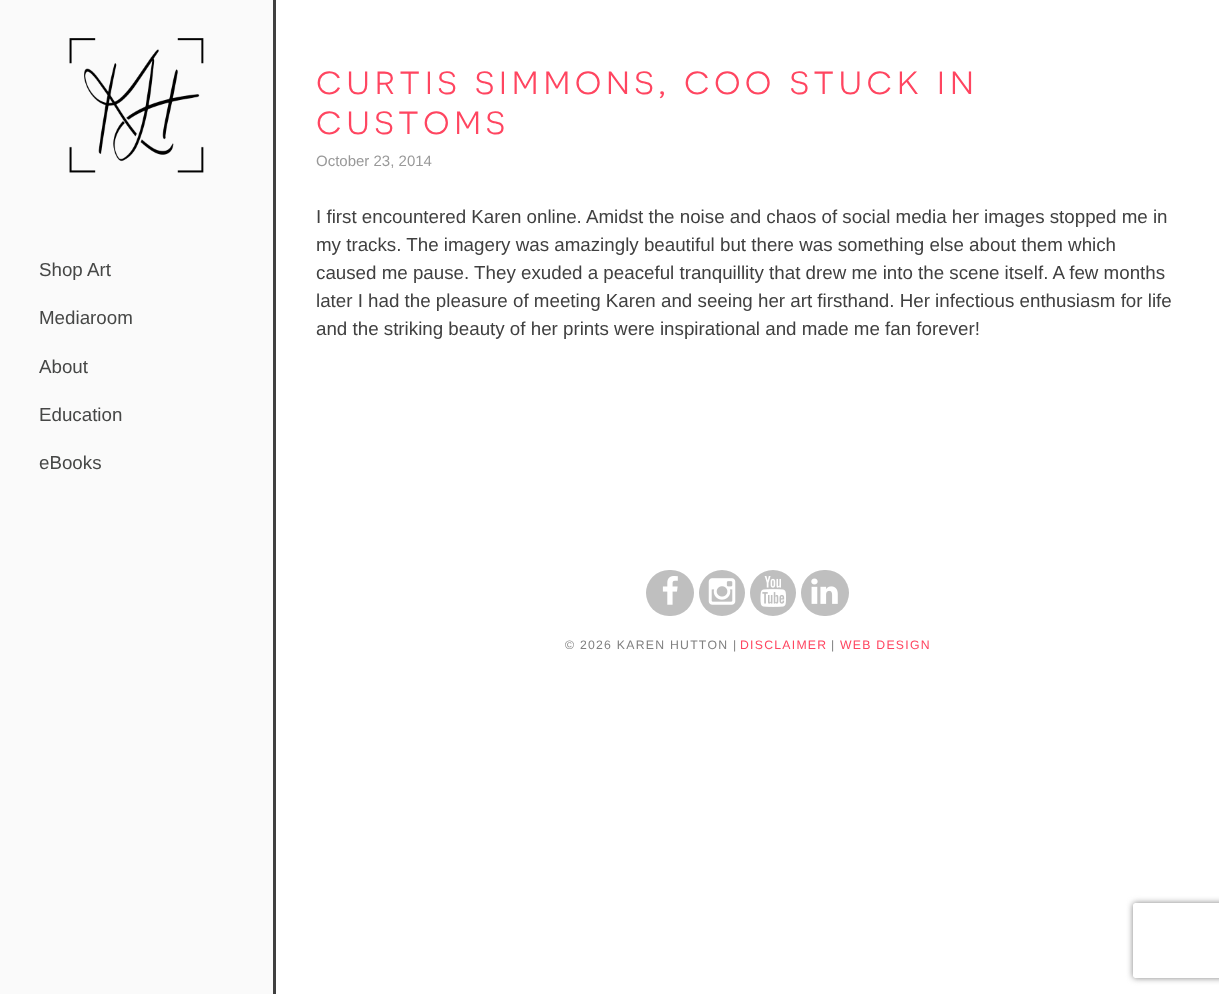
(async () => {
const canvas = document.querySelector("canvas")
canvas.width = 1219
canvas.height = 994
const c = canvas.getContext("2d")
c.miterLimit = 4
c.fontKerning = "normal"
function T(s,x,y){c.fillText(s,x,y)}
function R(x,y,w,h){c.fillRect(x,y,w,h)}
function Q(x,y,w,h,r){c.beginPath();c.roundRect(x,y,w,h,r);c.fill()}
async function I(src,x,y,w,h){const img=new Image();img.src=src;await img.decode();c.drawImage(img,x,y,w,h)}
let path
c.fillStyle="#fff"
R(0,0,1219,994)
c.fillStyle="#fafafa"
R(0,0,273,994)
c.fillStyle="#404040"
R(273,0,3,994)
await I("1.png",69,38,135,135)
c.font="18.75px Liberation Sans"
c.fillStyle="#464746"
T("Shop Art",39,276)
T("Mediaroom",39,324)
T("About",39,373)
T("Education",39,421)
T("eBooks",39,469)
c.letterSpacing="4px"
c.font="40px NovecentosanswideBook"
c.fillStyle="#ff4560"
T("curtis simmons, coo stuck in",316,94)
T("customs",316,134)
c.letterSpacing="0px"
c.font="15px Liberation Sans"
c.fillStyle="#999"
T("October 23, 2014",316,166)
c.font="18.75px Liberation Sans"
c.fillStyle="#404040"
T("I first encountered Karen online. Amidst the noise and chaos of social media her images stopped me in",316,223)
T("my tracks. The imagery was amazingly beautiful but there was something else about them which",316,251)
T("caused me pause. They exuded a peaceful tranquillity that drew me into the scene itself. A few months",316,279)
T("later I had the pleasure of meeting Karen and seeing her art firsthand. Her infectious enthusiasm for life",316,307)
T("and the striking beauty of her prints were inspirational and made me fan forever!",316,335)
c.fillStyle="#bfbfbf"
Q(646,570,48,46,23)
await I("2.png",662,576,16,29)
c.beginPath()
c.arc(722,593,23,0,7)
c.fill()
await I("3.png",708,578,28,27)
c.beginPath()
c.arc(773,593,23,0,7)
c.fill()
await I("4.png",760,576,26,31)
Q(801,570,48,46,23)
await I("5.png",811,578,27,26)
c.letterSpacing="1.25px"
c.font="12.25px Liberation Sans"
c.fillStyle="#808080"
T("© 2026 KAREN HUTTON |",565,649)
c.fillStyle="#ff4560"
T("DISCLAIMER",740,649)
c.fillStyle="#808080"
T("|",831,649)
c.fillStyle="#ff4560"
T("WEB DESIGN",840,649)
c.save()
path = new Path2D("M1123 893h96v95h-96zm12.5 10h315c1.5 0 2.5 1 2.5 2.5v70c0 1.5-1 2.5-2.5 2.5h-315c-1.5 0-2.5-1-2.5-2.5v-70c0-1.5 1-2.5 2.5-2.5z")
c.clip(path,"evenodd")
c.fillStyle="#808080"
c.filter="blur(3px)"
c.beginPath()
c.roundRect(1133,903,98,75,2.5)
c.fill()
c.filter="none"
c.restore()
})()
